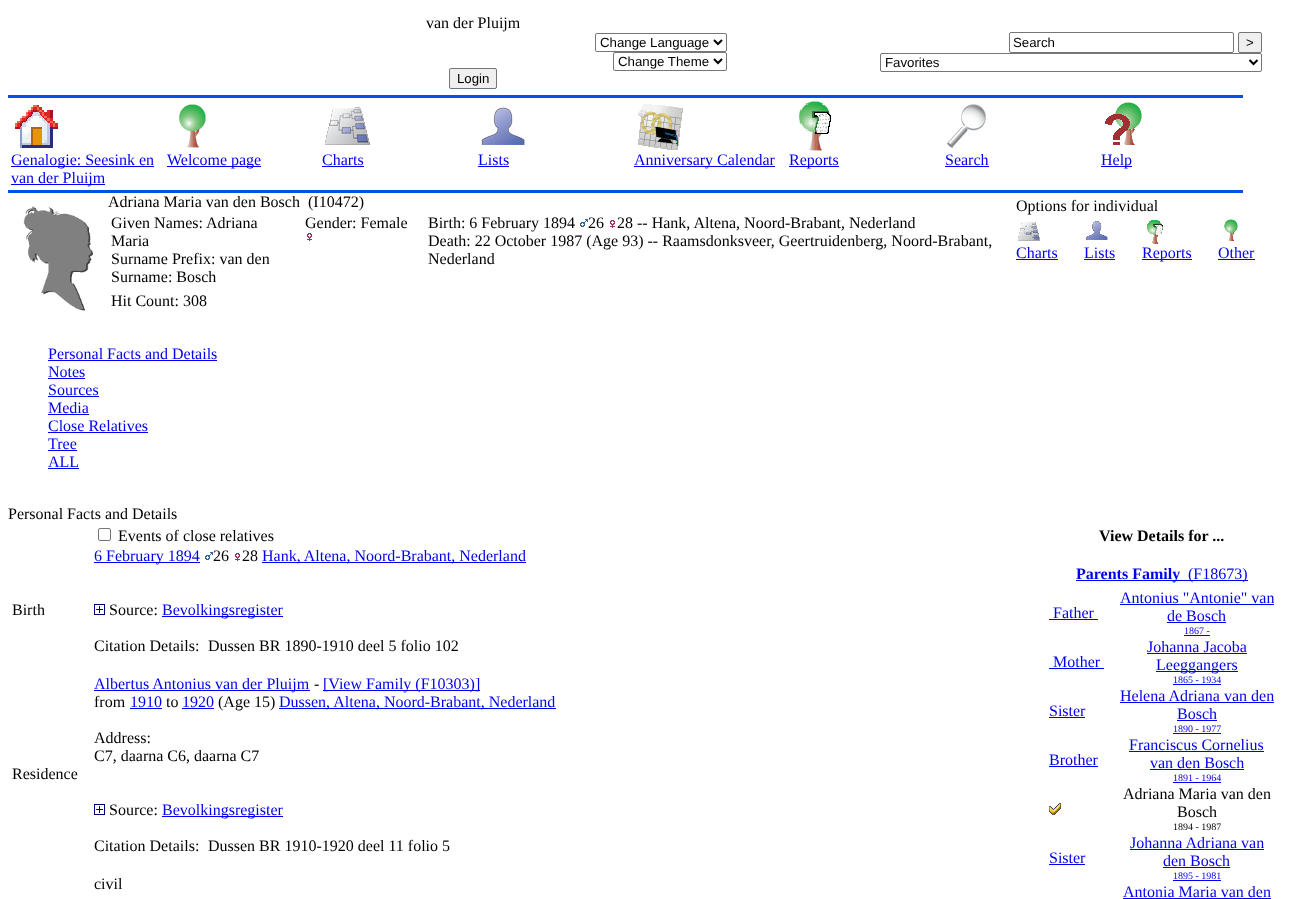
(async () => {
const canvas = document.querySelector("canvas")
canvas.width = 1289
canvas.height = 899
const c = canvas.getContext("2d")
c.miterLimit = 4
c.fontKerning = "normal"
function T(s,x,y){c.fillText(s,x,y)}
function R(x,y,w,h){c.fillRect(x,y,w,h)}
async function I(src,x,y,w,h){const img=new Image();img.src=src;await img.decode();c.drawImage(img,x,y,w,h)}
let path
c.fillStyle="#fff"
R(0,0,1289,899)
c.font="16px Liberation Serif"
c.fillStyle="#000"
T("van der Pluijm",426,28)
c.fillStyle="#efefef"
c.beginPath()
c.roundRect(449.5,68.5,47,20,1.5)
c.fill()
c.strokeStyle="#767676"
c.stroke()
c.font="13.25px Liberation Sans"
c.fillStyle="#000"
T("Login",457,83)
c.beginPath()
c.roundRect(595.5,33.5,131,18,1.5)
c.stroke()
path = new Path2D("M714 40l4 4l4-4")
c.strokeStyle="#000"
c.lineWidth=2
c.stroke(path)
T("Change Language",600,47)
c.beginPath()
c.roundRect(613.5,52.5,113,18,1.5)
c.strokeStyle="#767676"
c.lineWidth=1
c.stroke()
path = new Path2D("M714 59l4 4l4-4")
c.strokeStyle="#000"
c.lineWidth=2
c.stroke(path)
T("Change Theme",618,66)
c.beginPath()
c.roundRect(1009.5,32.5,224,20,1.5)
c.strokeStyle="#767676"
c.lineWidth=1
c.stroke()
T("Search",1013,47)
c.fillStyle="#efefef"
c.beginPath()
c.roundRect(1238.5,32.5,23,20,1.5)
c.fill()
c.stroke()
c.fillStyle="#000"
T(">",1246,47)
c.beginPath()
c.roundRect(880.5,53.5,381,18,1.5)
c.stroke()
path = new Path2D("M1249.5 60l4 4l4-4")
c.strokeStyle="#000"
c.lineWidth=2
c.stroke(path)
T("Favorites",885,67)
c.fillStyle="#0050e8"
R(8,95,1235,3)
await I("1.png",15,105,43,43)
c.fillStyle="#00e"
R(11,166,143,1)
c.font="16px Liberation Serif"
T("Genalogie: Seesink en",11,165)
R(11,184,94,1)
T("van der Pluijm",11,183)
await I("2.png",179,104,27,44)
R(167,166,94,1)
T("Welcome page",167,165)
await I("3.png",325,107,45,38)
T("Charts",322,165)
R(322,166,42,1)
await I("4.png",481,107,44,38)
T("Lists",478,165)
R(478,166,31,1)
await I("5.png",638,104,45,46)
R(634,166,141,1)
T("Anniversary Calendar",634,165)
await I("6.png",799,101,32,50)
R(789,166,50,1)
T("Reports",789,165)
await I("7.png",947,104,39,44)
T("Search",945,165)
R(945,166,44,1)
await I("8.png",1105,102,37,43)
R(1101,166,31,1)
T("Help",1101,165)
c.fillStyle="#0050e8"
R(8,190,1235,3)
await I("9.png",23,206,70,105)
c.fillStyle="#000"
T("Adriana Maria van den Bosch",108,207)
T("(I10472)",308,207)
T("Given Names:",111,228)
T("Adriana",206,228)
T("Maria",111,246)
T("Surname Prefix: van den",111,264)
T("Surname: Bosch",111,282)
T("Gender: Female",305,228)
await I("10.png",307,233,5,8)
T("Birth: 6 February 1894",428,228)
await I("11.png",580,219,8,8)
T("26",588,228)
await I("10.png",610,220,5,8)
T("28 -- Hank, Altena, Noord-Brabant, Nederland",617,228)
T("Death: 22 October 1987 (Age 93) -- Raamsdonksveer, Geertruidenberg, Noord-Brabant,",428,246)
T("Nederland",428,264)
T("Hit Count: 308",111,306)
T("Options for individual",1016,211)
await I("12.png",1018,222,22,19)
c.fillStyle="#00e"
T("Charts",1016,258)
R(1016,259,42,1)
await I("13.png",1086,221,22,19)
T("Lists",1084,258)
R(1084,259,31,1)
await I("14.png",1147,220,16,24)
R(1142,259,50,1)
T("Reports",1142,258)
await I("15.png",1224,219,14,22)
T("Other",1218,258)
R(1218,259,37,1)
T("Personal Facts and Details",48,359)
R(48,360,169,1)
T("Notes",48,377)
R(48,378,37,1)
T("Sources",48,395)
R(48,396,51,1)
T("Media",48,413)
R(48,414,41,1)
T("Close Relatives",48,431)
R(48,432,100,1)
T("Tree",48,449)
R(48,450,29,1)
T("ALL",48,467)
R(48,468,31,1)
c.fillStyle="#000"
T("Personal Facts and Details",8,519)
c.beginPath()
c.roundRect(98.5,528.5,12,12,1.5)
c.strokeStyle="#767676"
c.lineWidth=1
c.stroke()
T("Events of close relatives",118,541)
T("Birth",12,615)
c.fillStyle="#00e"
R(94,562,106,1)
T("6 February 1894",94,561)
await I("11.png",205,552,8,8)
c.fillStyle="#000"
T("26",213,561)
await I("10.png",235,553,5,8)
T("28",242,561)
c.fillStyle="#00e"
R(262,562,264,1)
T("Hank, Altena, Noord-Brabant, Nederland",262,561)
await I("16.png",94,604,11,11)
c.fillStyle="#000"
T("Source:",109,615)
c.fillStyle="#00e"
R(162,616,121,1)
T("Bevolkingsregister",162,615)
c.fillStyle="#000"
T("Citation Details:",94,651)
T("Dussen BR 1890-1910 deel 5 folio 102",208,651)
T("Residence",12,779)
c.fillStyle="#00e"
R(94,690,216,1)
T("Albertus Antonius van der Pluijm",94,689)
c.fillStyle="#000"
T("-",314,689)
c.fillStyle="#00e"
R(323,690,157,1)
T("[View Family (F10303)]",323,689)
c.fillStyle="#000"
T("from",94,707)
c.fillStyle="#00e"
T("1910",130,707)
R(130,708,32,1)
c.fillStyle="#000"
T("to",166,707)
c.fillStyle="#00e"
T("1920",182,707)
R(182,708,32,1)
c.fillStyle="#000"
T("(Age 15)",218,707)
c.fillStyle="#00e"
R(279,708,277,1)
T("Dussen, Altena, Noord-Brabant, Nederland",279,707)
c.fillStyle="#000"
T("Address:",94,743)
T("C7, daarna C6, daarna C7",94,761)
await I("16.png",94,804,11,11)
T("Source:",109,815)
c.fillStyle="#00e"
R(162,816,121,1)
T("Bevolkingsregister",162,815)
c.fillStyle="#000"
T("Citation Details:",94,851)
T("Dussen BR 1910-1920 deel 11 folio 5",208,851)
T("civil",94,889)
c.font="bold 16px Liberation Serif"
T("View Details for ...",1099,541)
c.fillStyle="#00e"
R(1076,580,172,1)
T("Parents Family",1076,579)
c.font="16px Liberation Serif"
T("(F18673)",1188,579)
T("Father",1053,618)
R(1049,619,49,1)
T("Antonius \"Antonie\" van",1120,603)
R(1120,604,154,1)
T("de Bosch",1167,621)
R(1167,622,59,1)
c.font="10px Liberation Serif"
T("1867 -",1184,634)
R(1184,635,26,1)
c.font="16px Liberation Serif"
T("Mother",1053,667)
R(1049,668,55,1)
T("Johanna Jacoba",1147,652)
R(1147,653,100,1)
R(1156,671,82,1)
T("Leeggangers",1156,670)
c.font="10px Liberation Serif"
T("1865 - 1934",1173,683)
R(1173,684,48,1)
c.font="16px Liberation Serif"
T("Sister",1049,716)
R(1049,717,36,1)
T("Helena Adriana van den",1120,701)
R(1120,702,154,1)
T("Bosch",1177,719)
R(1177,720,40,1)
c.font="10px Liberation Serif"
T("1890 - 1977",1173,732)
R(1173,733,48,1)
c.font="16px Liberation Serif"
T("Brother",1049,765)
R(1049,766,49,1)
T("Franciscus Cornelius",1129,750)
R(1129,751,135,1)
T("van den Bosch",1150,768)
R(1150,769,94,1)
c.font="10px Liberation Serif"
T("1891 - 1964",1173,781)
R(1173,782,48,1)
await I("17.png",1049,803,12,12)
c.font="16px Liberation Serif"
c.fillStyle="#000"
T("Adriana Maria van den",1123,799)
T("Bosch",1177,817)
c.font="10px Liberation Serif"
T("1894 - 1987",1173,830)
c.font="16px Liberation Serif"
c.fillStyle="#00e"
T("Sister",1049,863)
R(1049,864,36,1)
T("Johanna Adriana van",1130,848)
R(1130,849,134,1)
T("den Bosch",1163,866)
R(1163,867,67,1)
c.font="10px Liberation Serif"
T("1895 - 1981",1173,879)
R(1173,880,48,1)
c.font="16px Liberation Serif"
T("Antonia Maria van den",1123,897)
R(1123,898,148,1)
})()
